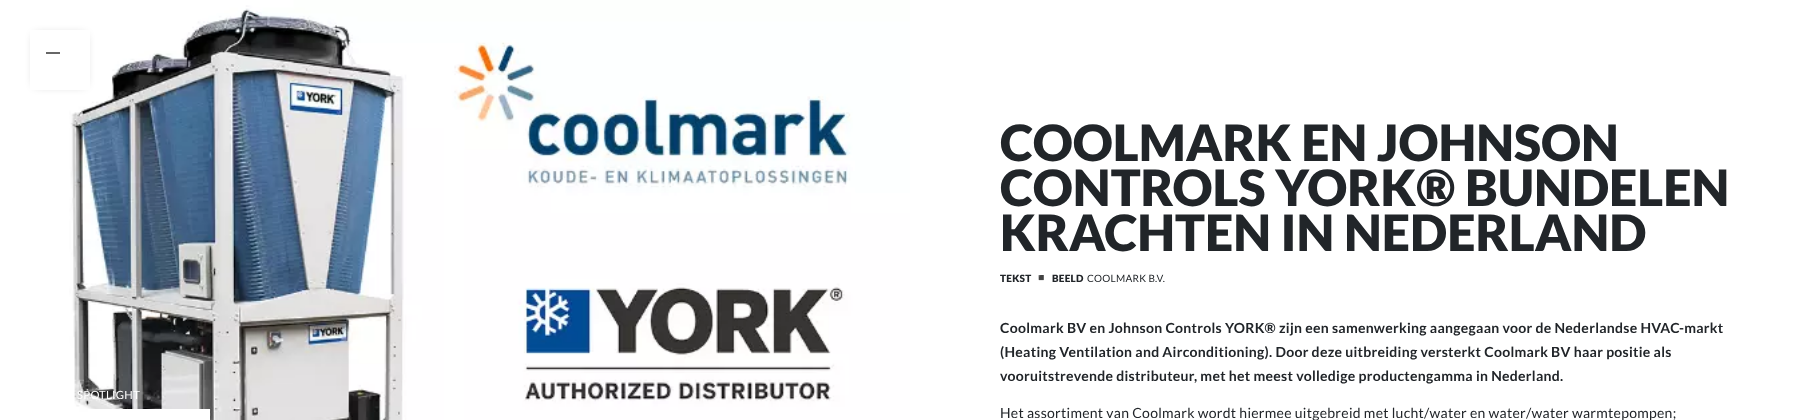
(async () => {
const canvas = document.querySelector("canvas")
canvas.width = 1820
canvas.height = 420
const c = canvas.getContext("2d")
c.miterLimit = 4
c.fontKerning = "normal"
function T(s,x,y){c.fillText(s,x,y)}
function R(x,y,w,h){c.fillRect(x,y,w,h)}
async function I(src,x,y,w,h){const img=new Image();img.src=src;await img.decode();c.drawImage(img,x,y,w,h)}
let path
c.fillStyle="#fff"
R(0,0,1820,420)
await I("1.png",0,0,910,420)
c.save()
path = new Path2D("M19 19h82v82h-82zm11 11h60v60h-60z")
c.clip(path,"evenodd")
c.fillStyle="#0000004d"
c.filter="blur(5px)"
c.beginPath()
c.rect(35,35,50,50)
c.fill()
c.filter="none"
c.restore()
path = new Path2D("M46 53h14")
c.strokeStyle="#000"
c.lineWidth=1.2
c.stroke(path)
c.letterSpacing="0.28px"
c.font="11.25px Lato"
T("SPOTLIGHT",77,399)
R(88,409,122,11)
c.letterSpacing="0px"
c.font="900 50px Lato"
c.fillStyle="#212529"
T("COOLMARK EN JOHNSON",1000,161)
T("CONTROLS YORK® BUNDELEN",1000,206)
T("KRACHTEN IN NEDERLAND",1000,251)
c.letterSpacing="0.25px"
c.font="900 10px Lato"
T("TEKST",1000,282)
c.font="10px Noto Color Emoji"
T("◾",1035,281)
c.font="900 10px Lato"
T("BEELD",1052,282)
c.font="10px Lato"
T("COOLMARK B.V.",1087,282)
c.letterSpacing="0.28px"
c.font="bold 14px Lato"
T("Coolmark BV en Johnson Controls YORK® zijn een samenwerking aangegaan voor de Nederlandse HVAC-markt",1000,333)
T("(Heating Ventilation and Airconditioning). Door deze uitbreiding versterkt Coolmark BV haar positie als",1000,357)
T("vooruitstrevende distributeur, met het meest volledige productengamma in Nederland.",1000,381)
c.font="14px Lato"
T("Het assortiment van Coolmark wordt hiermee uitgebreid met lucht/water en water/water warmtepompen;",1000,418)
})()
